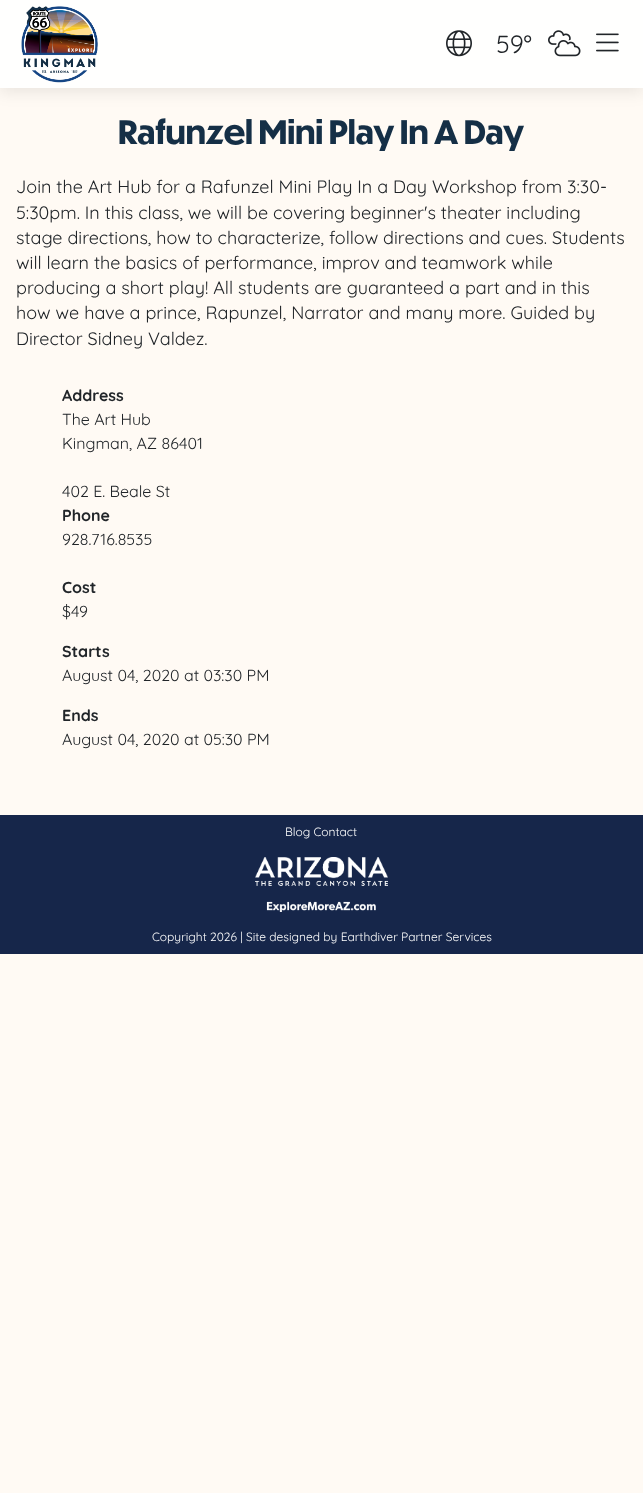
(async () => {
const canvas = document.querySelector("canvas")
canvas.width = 643
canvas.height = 1493
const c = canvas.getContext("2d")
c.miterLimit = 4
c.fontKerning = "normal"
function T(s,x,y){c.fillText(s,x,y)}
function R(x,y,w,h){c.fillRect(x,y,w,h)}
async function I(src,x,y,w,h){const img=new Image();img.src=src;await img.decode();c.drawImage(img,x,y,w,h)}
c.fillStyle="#fffaf4"
R(0,0,643,1493)
c.fillStyle="#00000014"
c.filter="blur(7.5px)"
c.beginPath()
c.rect(0,5,643,88)
c.fill()
c.filter="none"
c.fillStyle="#fffffe"
R(0,0,643,88)
await I("1.png",21,6,77,77)
await I("2.png",446,30,26,27)
c.font="25px Quicksand"
c.fillStyle="#212529"
T("59°",496,53)
await I("3.png",548,30,33,27)
await I("4.png",596,33,23,19)
c.font="bold 32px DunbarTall"
c.fillStyle="#152f46"
T("Rafunzel Mini Play In A Day",118,144)
c.font="18px Quicksand"
c.fillStyle="#212529"
T("Join the Art Hub for a Rafunzel Mini Play In a Day Workshop from 3:30-",16,193)
T("5:30pm. In this class, we will be covering beginner's theater including",16,219)
T("stage directions, how to characterize, follow directions and cues. Students",16,244)
T("will learn the basics of performance, improv and teamwork while",16,269)
T("producing a short play! All students are guaranteed a part and in this",16,294)
T("how we have a prince, Rapunzel, Narrator and many more. Guided by",16,319)
T("Director Sidney Valdez.",16,345)
c.font="bold 16px Quicksand"
T("Address",62,401)
c.font="16px Quicksand"
T("The Art Hub",62,425)
T("Kingman, AZ 86401",62,449)
T("402 E. Beale St",62,497)
c.font="bold 16px Quicksand"
T("Phone",62,521)
c.font="16px Quicksand"
T("928.716.8535",62,545)
c.font="bold 16px Quicksand"
T("Cost",62,593)
c.font="16px Quicksand"
T("$49",62,617)
c.font="bold 16px Quicksand"
T("Starts",62,657)
c.font="16px Quicksand"
T("August 04, 2020 at 03:30 PM",62,681)
c.font="bold 16px Quicksand"
T("Ends",62,721)
c.font="16px Quicksand"
T("August 04, 2020 at 05:30 PM",62,745)
c.fillStyle="#16264a"
R(0,815,643,139)
c.font="12px Quicksand"
c.fillStyle="#fff"
T("Blog Contact",285,836)
await I("5.png",255,857,133,55)
T("Copyright 2026 | Site designed by Earthdiver Partner Services",152,941)
})()
